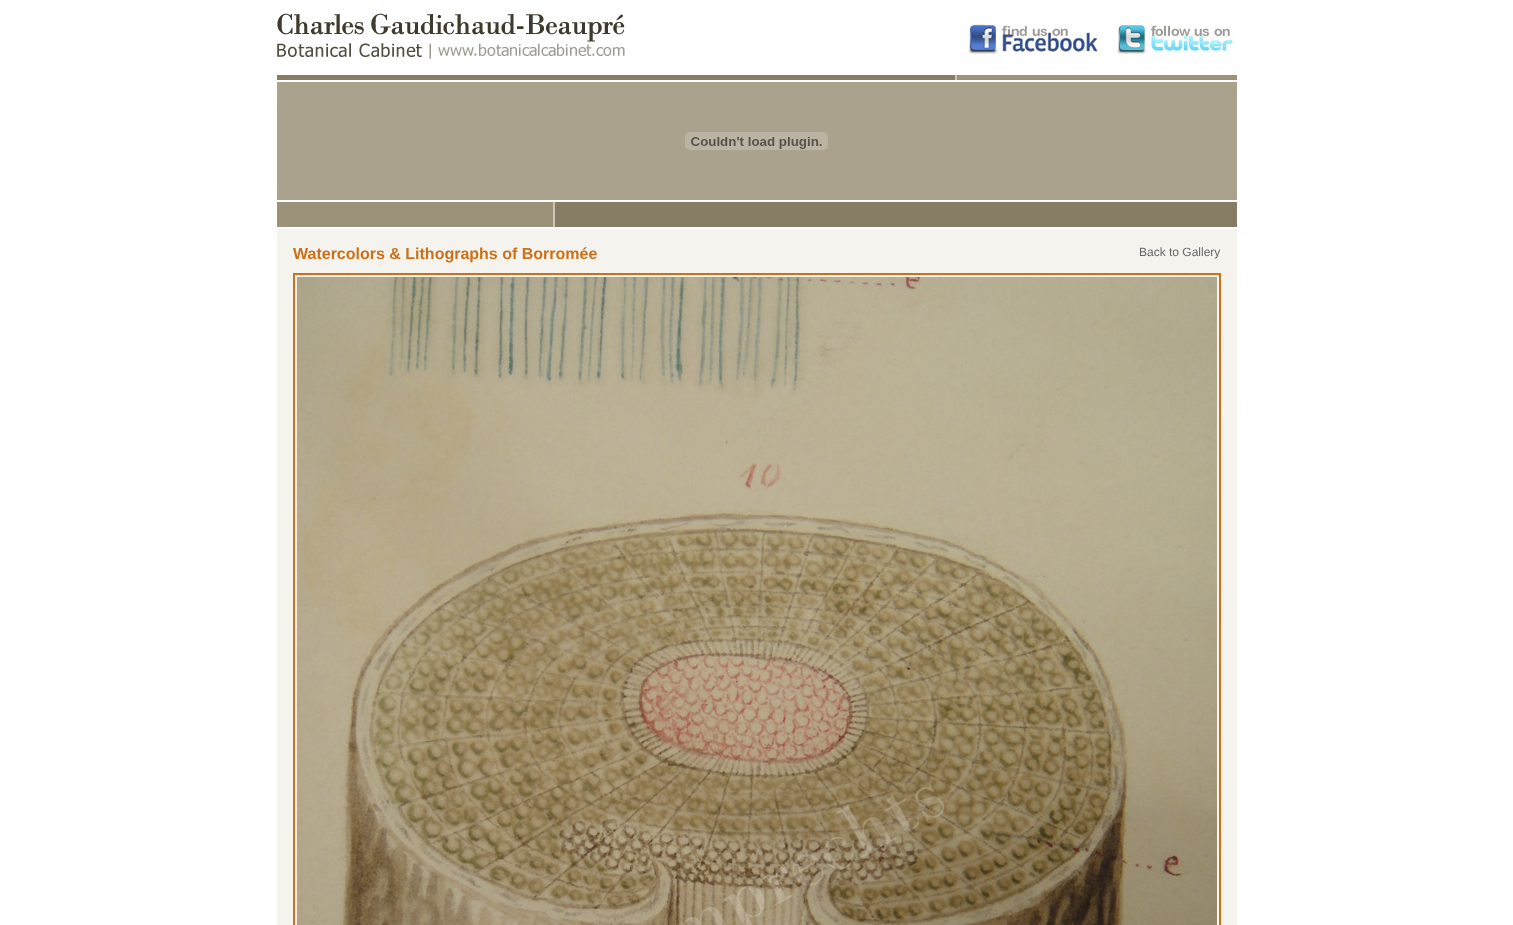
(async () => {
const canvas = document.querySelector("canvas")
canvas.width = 1513
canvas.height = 925
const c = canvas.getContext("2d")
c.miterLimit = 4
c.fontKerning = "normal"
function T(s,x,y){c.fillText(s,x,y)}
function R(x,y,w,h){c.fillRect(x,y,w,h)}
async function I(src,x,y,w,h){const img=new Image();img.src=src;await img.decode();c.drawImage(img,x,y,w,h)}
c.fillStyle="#fff"
R(0,0,1513,925)
await I("1.png",277,75,960,5)
await I("2.png",277,13,348,46)
await I("3.png",968,24,130,30)
await I("4.png",1117,25,118,29)
c.fillStyle="#aba28e"
R(277,82,960,118)
await I("5.png",685,132,143,18)
await I("6.png",277,202,960,25)
c.fillStyle="#f5f3ee"
R(277,229,960,696)
c.font="bold 16px Liberation Sans"
c.fillStyle="#cc7019"
T("Watercolors & Lithographs of Borromée",293,259)
c.font="12px Liberation Sans"
c.fillStyle="#666"
T("Back to Gallery",1139,256)
await I("7.png",297,277,920,648)
c.strokeStyle="#cc7019"
c.lineWidth=2
c.strokeRect(294,274,926,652)
})()
